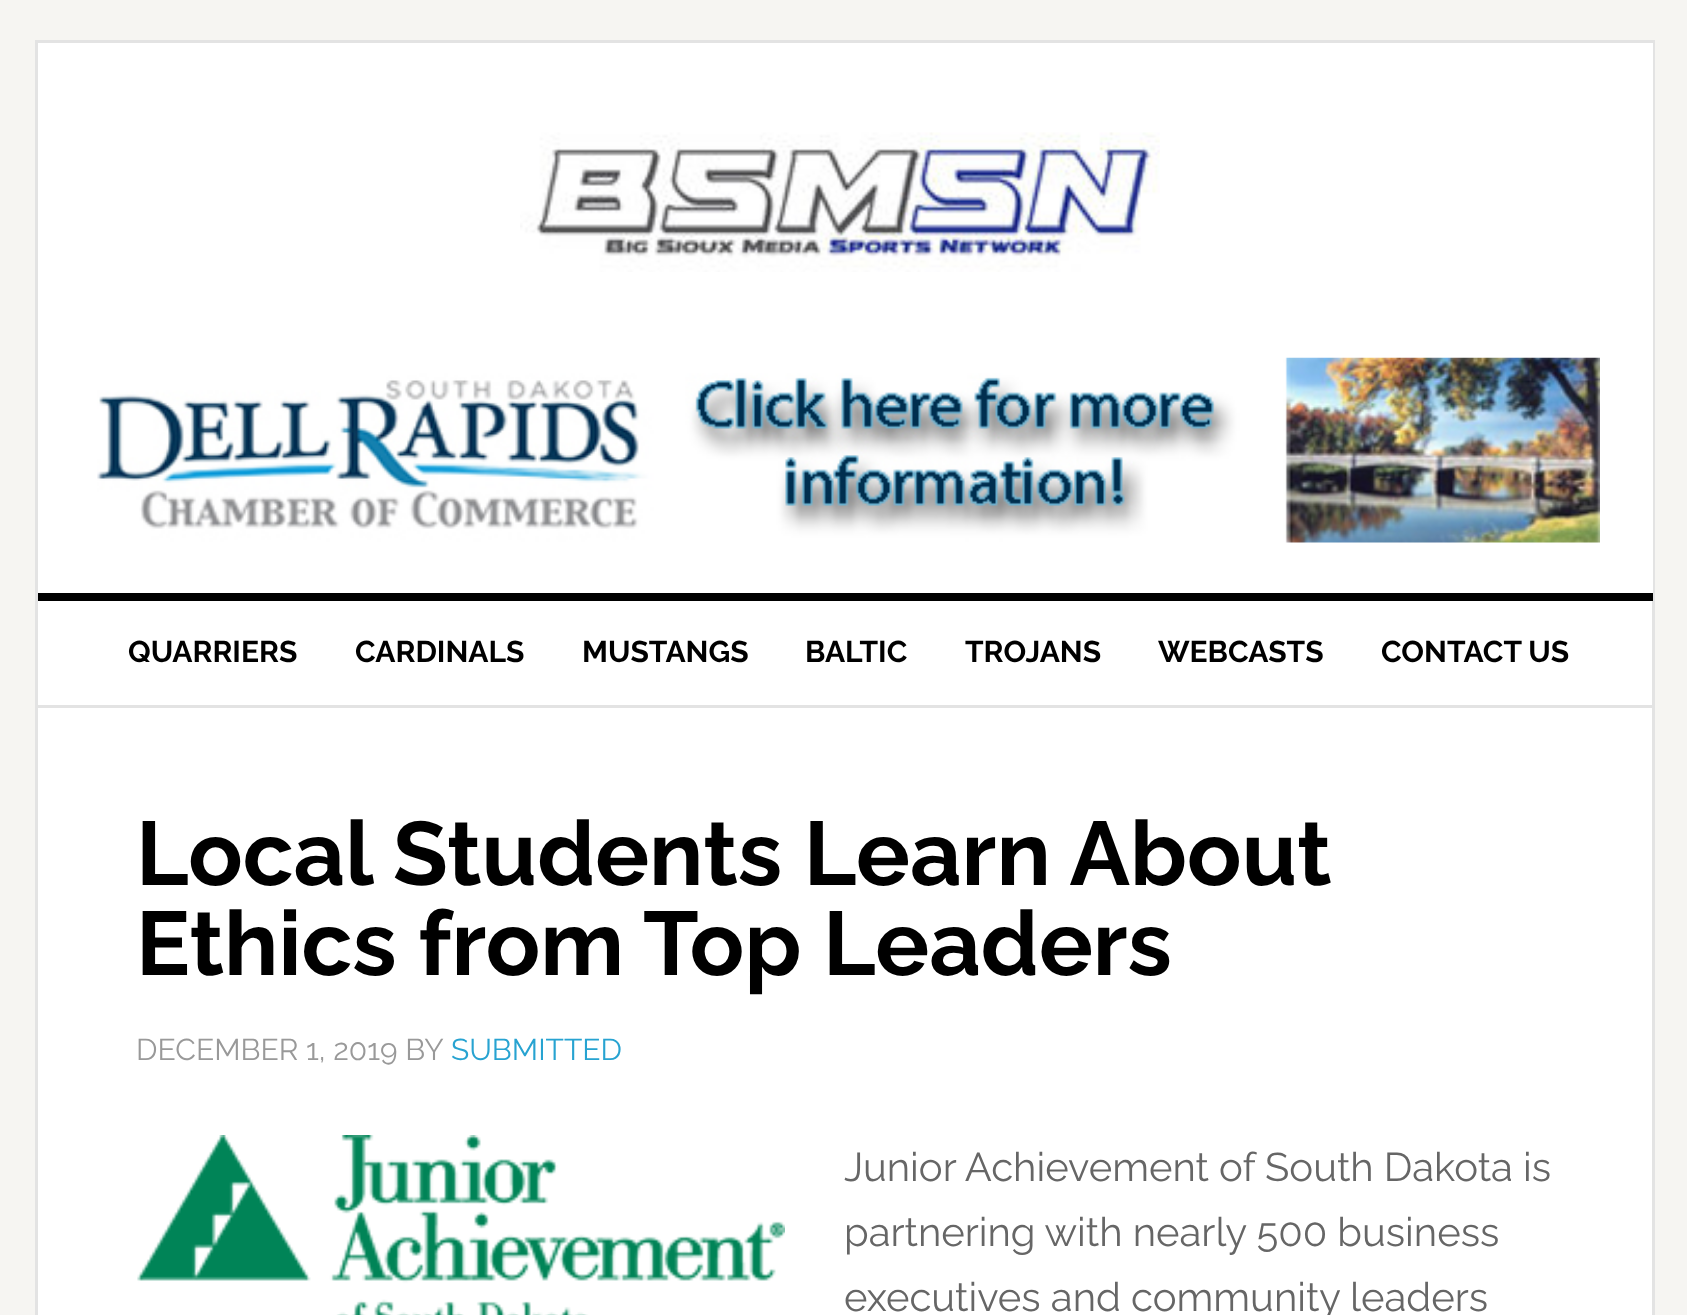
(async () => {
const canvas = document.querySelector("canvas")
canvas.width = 1687
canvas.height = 1315
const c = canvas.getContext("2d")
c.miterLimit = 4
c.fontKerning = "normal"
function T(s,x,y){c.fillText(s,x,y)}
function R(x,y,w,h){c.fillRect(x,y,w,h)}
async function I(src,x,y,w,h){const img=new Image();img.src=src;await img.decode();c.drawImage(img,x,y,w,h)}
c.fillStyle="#f6f5f2"
R(0,0,1687,1315)
c.fillStyle="#fff"
R(38,601,1614,714)
c.strokeStyle="#e3e3e3"
c.lineWidth=3
c.strokeRect(36.5,41.5,1617,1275)
R(38,43,1615,550)
await I("1.png",520,132,640,140)
await I("2.png",97,357,1503,186)
c.fillStyle="#000"
R(38,593,1615,8)
c.fillStyle="#e3e3e3"
R(38,705,1615,3)
c.font="bold 30px Raleway"
c.fillStyle="#000"
T("QUARRIERS",128,662)
T("CARDINALS",355,662)
T("MUSTANGS",582,662)
T("BALTIC",805,662)
T("TROJANS",965,662)
T("WEBCASTS",1158,662)
T("CONTACT US",1381,662)
c.font="bold 90px Raleway"
T("Local Students Learn About",136,885)
T("Ethics from Top Leaders",136,975)
c.font="30px Raleway"
c.fillStyle="#999"
T("DECEMBER 1, 2019 BY",136,1060)
c.fillStyle="#27a3d1"
T("SUBMITTED",451,1060)
await I("3.png",137,1135,648,180)
c.font="40px Raleway"
c.fillStyle="#666"
T("Junior Achievement of South Dakota is",844,1181)
T("partnering with nearly 500 business",844,1246)
T("executives and community leaders",844,1311)
})()
